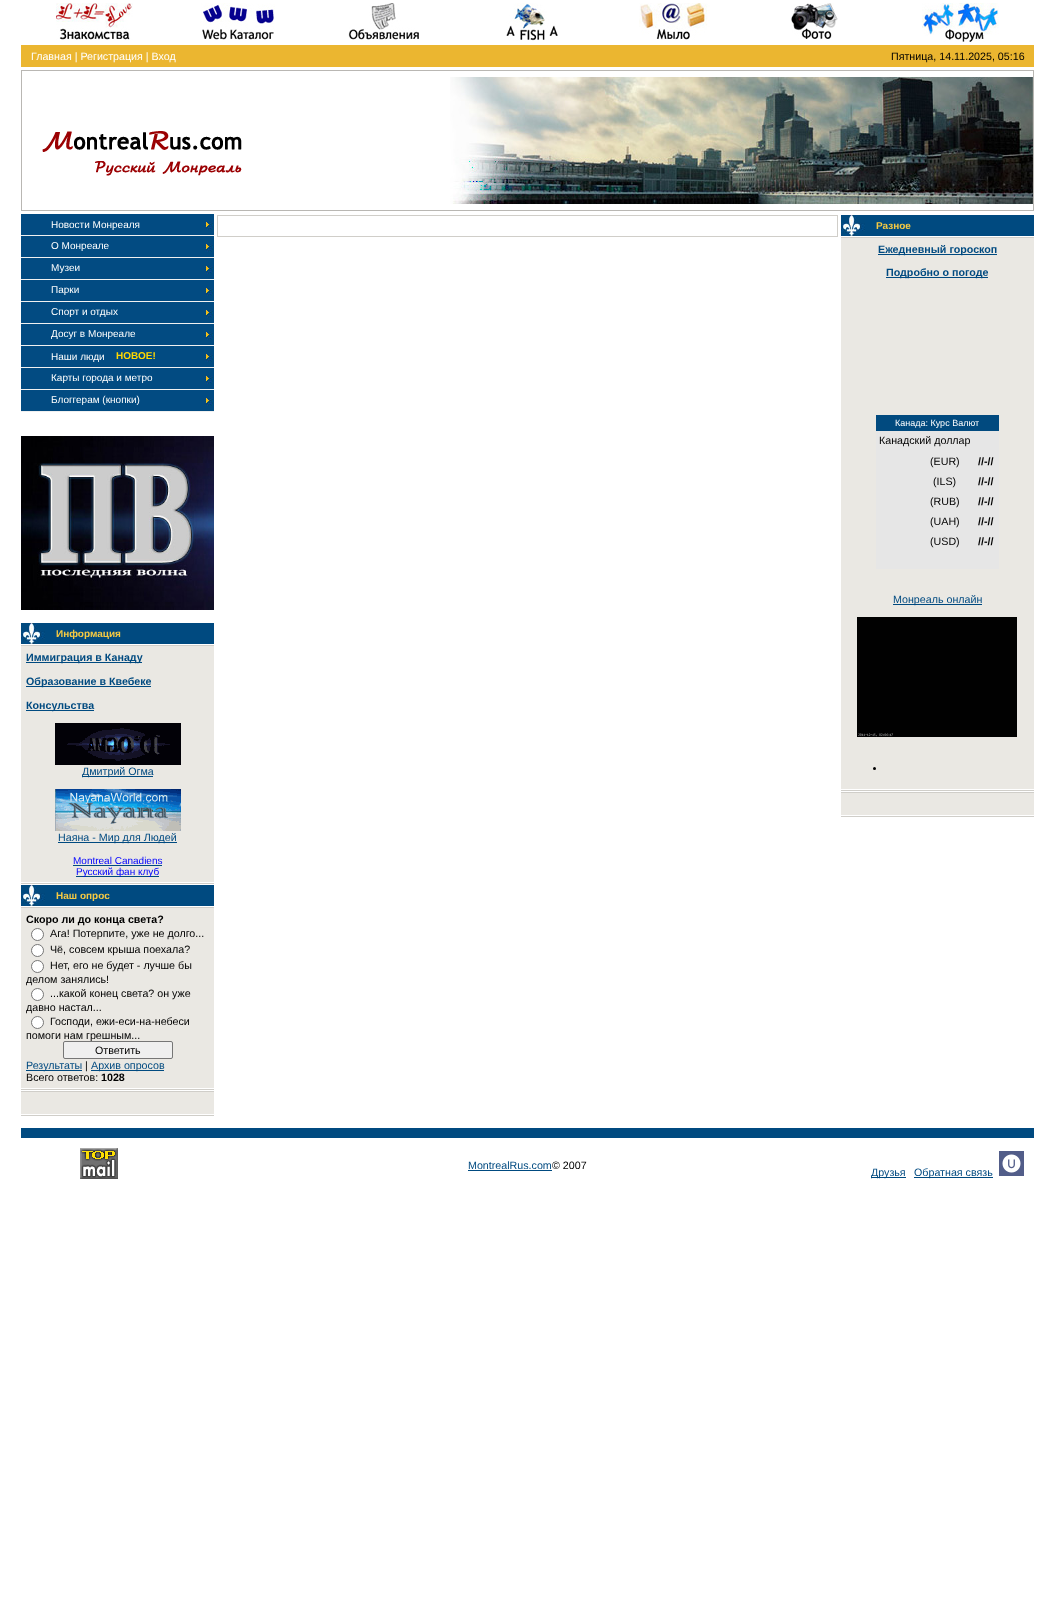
(async () => {
const canvas = document.querySelector("canvas")
canvas.width = 1055
canvas.height = 1614
const c = canvas.getContext("2d")
c.miterLimit = 4
c.fontKerning = "normal"
function T(s,x,y){c.fillText(s,x,y)}
function R(x,y,w,h){c.fillRect(x,y,w,h)}
async function I(src,x,y,w,h){const img=new Image();img.src=src;await img.decode();c.drawImage(img,x,y,w,h)}
c.fillStyle="#fff"
R(0,0,1055,1614)
await I("1.png",56,3,77,37)
await I("2.png",200,3,75,37)
await I("3.png",348,3,71,37)
await I("4.png",506,3,52,38)
await I("5.png",639,3,71,37)
await I("6.png",791,3,47,36)
await I("7.png",922,3,77,39)
c.fillStyle="#ebb630"
R(21,45,1013,22)
c.font="10.7px Liberation Sans"
c.fillStyle="#fff"
T("Главная | Регистрация | Вход",31,60)
c.fillStyle="#000"
T("Пятница, 14.11.2025, 05:16",891,60)
await I("8.png",450,77,583,127)
c.strokeStyle="#b9b7b3"
c.strokeRect(21.5,70.5,1012,140)
await I("9.png",42,131,200,45)
await I("10.png",21,214,193,21)
c.fillStyle="#f0f0f0"
R(21,235,193,1)
c.font="10px Liberation Sans"
c.fillStyle="#fff"
T("Новости Монреаля",51,228)
await I("10.png",21,236,193,21)
c.fillStyle="#f0f0f0"
R(21,257,193,1)
c.fillStyle="#fff"
T("О Монреале",51,249)
await I("10.png",21,258,193,21)
c.fillStyle="#f0f0f0"
R(21,279,193,1)
c.fillStyle="#fff"
T("Музеи",51,271)
await I("10.png",21,280,193,21)
c.fillStyle="#f0f0f0"
R(21,301,193,1)
c.fillStyle="#fff"
T("Парки",51,293)
await I("10.png",21,302,193,21)
c.fillStyle="#f0f0f0"
R(21,323,193,1)
c.fillStyle="#fff"
T("Спорт и отдых",51,315)
await I("10.png",21,324,193,21)
c.fillStyle="#f0f0f0"
R(21,345,193,1)
c.fillStyle="#fff"
T("Досуг в Монреале",51,337)
await I("10.png",21,346,193,21)
c.fillStyle="#f0f0f0"
R(21,367,193,1)
c.fillStyle="#fff"
T("Наши люди",51,360)
c.font="bold 10px Liberation Sans"
c.fillStyle="#ffd700"
T("НОВОЕ!",116,359)
await I("10.png",21,368,193,21)
c.fillStyle="#f0f0f0"
R(21,389,193,1)
c.font="10px Liberation Sans"
c.fillStyle="#fff"
T("Карты города и метро",51,381)
await I("10.png",21,390,193,21)
c.fillStyle="#f0f0f0"
R(21,411,193,1)
c.fillStyle="#fff"
T("Блоггерам (кнопки)",51,403)
await I("11.png",21,436,193,174)
c.fillStyle="#d0cec9"
R(21,883,193,1)
c.fillStyle="#004a80"
R(45,623,169,21)
await I("12.png",21,623,24,21)
c.font="bold 10px Liberation Sans"
c.fillStyle="#f6ca42"
T("Информация",56,637)
c.fillStyle="#eae8e3"
R(21,646,193,236)
c.fillStyle="#d0cec9"
R(21,645,193,1)
c.fillStyle="#004a80"
R(26,662,116,1)
c.font="bold 10.7px Liberation Sans"
T("Иммиграция в Канаду",26,661)
R(26,686,125,1)
T("Образование в Квебеке",26,685)
R(26,710,68,1)
T("Консульства",26,709)
await I("13.png",55,723,126,42)
R(82,776,71,1)
c.font="10.7px Liberation Sans"
T("Дмитрий Огма",82,775)
await I("14.png",55,789,126,42)
R(58,842,119,1)
T("Наяна - Мир для Людей",58,841)
c.font="10px Liberation Sans"
c.fillStyle="#00f"
T("Montreal Canadiens",73,864)
c.fillStyle="#004a80"
R(73,865,89,1)
R(76,876,83,1)
c.fillStyle="#00f"
T("Русский фан клуб",76,875)
c.fillStyle="#d0cec9"
R(21,1089,193,1)
c.fillStyle="#004a80"
R(45,885,169,21)
await I("12.png",21,885,24,21)
c.font="bold 10px Liberation Sans"
c.fillStyle="#f6ca42"
T("Наш опрос",56,899)
c.fillStyle="#eae8e3"
R(21,908,193,180)
c.fillStyle="#d0cec9"
R(21,907,193,1)
c.font="bold 10.7px Liberation Sans"
c.fillStyle="#000"
T("Скоро ли до конца света?",26,923)
c.fillStyle="#fff"
c.beginPath()
c.arc(37.5,934.5,6,0,7)
c.fill()
c.strokeStyle="#767676"
c.stroke()
c.font="10.7px Liberation Sans"
c.fillStyle="#000"
T("Ага! Потерпите, уже не долго...",50,937)
c.fillStyle="#fff"
c.beginPath()
c.arc(37.5,950.5,6,0,7)
c.fill()
c.stroke()
c.fillStyle="#000"
T("Чё, совсем крыша поехала?",50,953)
c.fillStyle="#fff"
c.beginPath()
c.arc(37.5,966.5,6,0,7)
c.fill()
c.stroke()
c.fillStyle="#000"
T("Нет, его не будет - лучше бы",50,969)
T("делом занялись!",26,983)
c.fillStyle="#fff"
c.beginPath()
c.arc(37.5,994.5,6,0,7)
c.fill()
c.stroke()
c.fillStyle="#000"
T("...какой конец света? он уже",50,997)
T("давно настал...",26,1011)
c.fillStyle="#fff"
c.beginPath()
c.arc(37.5,1022.5,6,0,7)
c.fill()
c.stroke()
c.fillStyle="#000"
T("Господи, ежи-еси-на-небеси",50,1025)
T("помоги нам грешным...",26,1039)
c.fillStyle="#efefef"
c.beginPath()
c.roundRect(63.5,1041.5,109,17,1.5)
c.fill()
c.stroke()
c.fillStyle="#000"
T("Ответить",95,1054)
c.fillStyle="#004a80"
R(26,1070,56,1)
T("Результаты",26,1069)
c.fillStyle="#000"
T("|",85,1069)
c.fillStyle="#004a80"
R(91,1070,73,1)
T("Архив опросов",91,1069)
c.fillStyle="#000"
T("Всего ответов:",26,1081)
c.font="bold 10.7px Liberation Sans"
T("1028",101,1081)
c.fillStyle="#d0cec9"
R(21,1115,193,1)
c.fillStyle="#eae8e3"
R(21,1092,193,22)
c.fillStyle="#d0cec9"
R(21,1091,193,1)
c.strokeStyle="#d0cec9"
c.strokeRect(217.5,215.5,620,21)
R(841,790,193,1)
c.fillStyle="#004a80"
R(865,215,169,21)
await I("12.png",841,215,24,21)
c.font="bold 10px Liberation Sans"
c.fillStyle="#f6ca42"
T("Разное",876,229)
c.fillStyle="#eae8e3"
R(841,238,193,551)
c.fillStyle="#d0cec9"
R(841,237,193,1)
c.fillStyle="#004a80"
R(878,254,119,1)
c.font="bold 10.7px Liberation Sans"
T("Ежедневный гороскоп",878,253)
R(886,277,102,1)
T("Подробно о погоде",886,276)
c.fillStyle="#e6e6e6"
R(876,431,123,138)
c.fillStyle="#014a7f"
R(876,415,123,16)
c.font="9px Liberation Sans"
c.fillStyle="#fff"
T("Канада: Курс Валют",895,426)
c.font="10.7px Liberation Sans"
c.fillStyle="#000"
T("Канадский доллар",879,444)
T("(EUR)",930,465)
c.font="bold 10.7px Liberation Sans"
T("//-//",978,465)
c.font="10.7px Liberation Sans"
T("(ILS)",933,485)
c.font="bold 10.7px Liberation Sans"
T("//-//",978,485)
c.font="10.7px Liberation Sans"
T("(RUB)",930,505)
c.font="bold 10.7px Liberation Sans"
T("//-//",978,505)
c.font="10.7px Liberation Sans"
T("(UAH)",930,525)
c.font="bold 10.7px Liberation Sans"
T("//-//",978,525)
c.font="10.7px Liberation Sans"
T("(USD)",930,545)
c.font="bold 10.7px Liberation Sans"
T("//-//",978,545)
c.fillStyle="#004a80"
R(893,604,89,1)
c.font="10.7px Liberation Sans"
T("Монреаль онлайн",893,603)
await I("15.png",857,617,160,120)
c.fillStyle="#000"
c.beginPath()
c.arc(874.5,768.5,1.5,0,7)
c.fill()
c.fillStyle="#d0cec9"
R(841,816,193,1)
c.fillStyle="#eae8e3"
R(841,793,193,22)
c.fillStyle="#d0cec9"
R(841,792,193,1)
c.fillStyle="#004a80"
R(21,1128,1013,10)
await I("16.png",80,1148,38,31)
T("MontrealRus.com",468,1169)
R(468,1170,84,1)
c.fillStyle="#000"
T("© 2007",552,1169)
c.fillStyle="#004a80"
R(871,1177,35,1)
T("Друзья",871,1176)
R(914,1177,79,1)
T("Обратная связь",914,1176)
await I("17.png",999,1151,25,25)
})()
